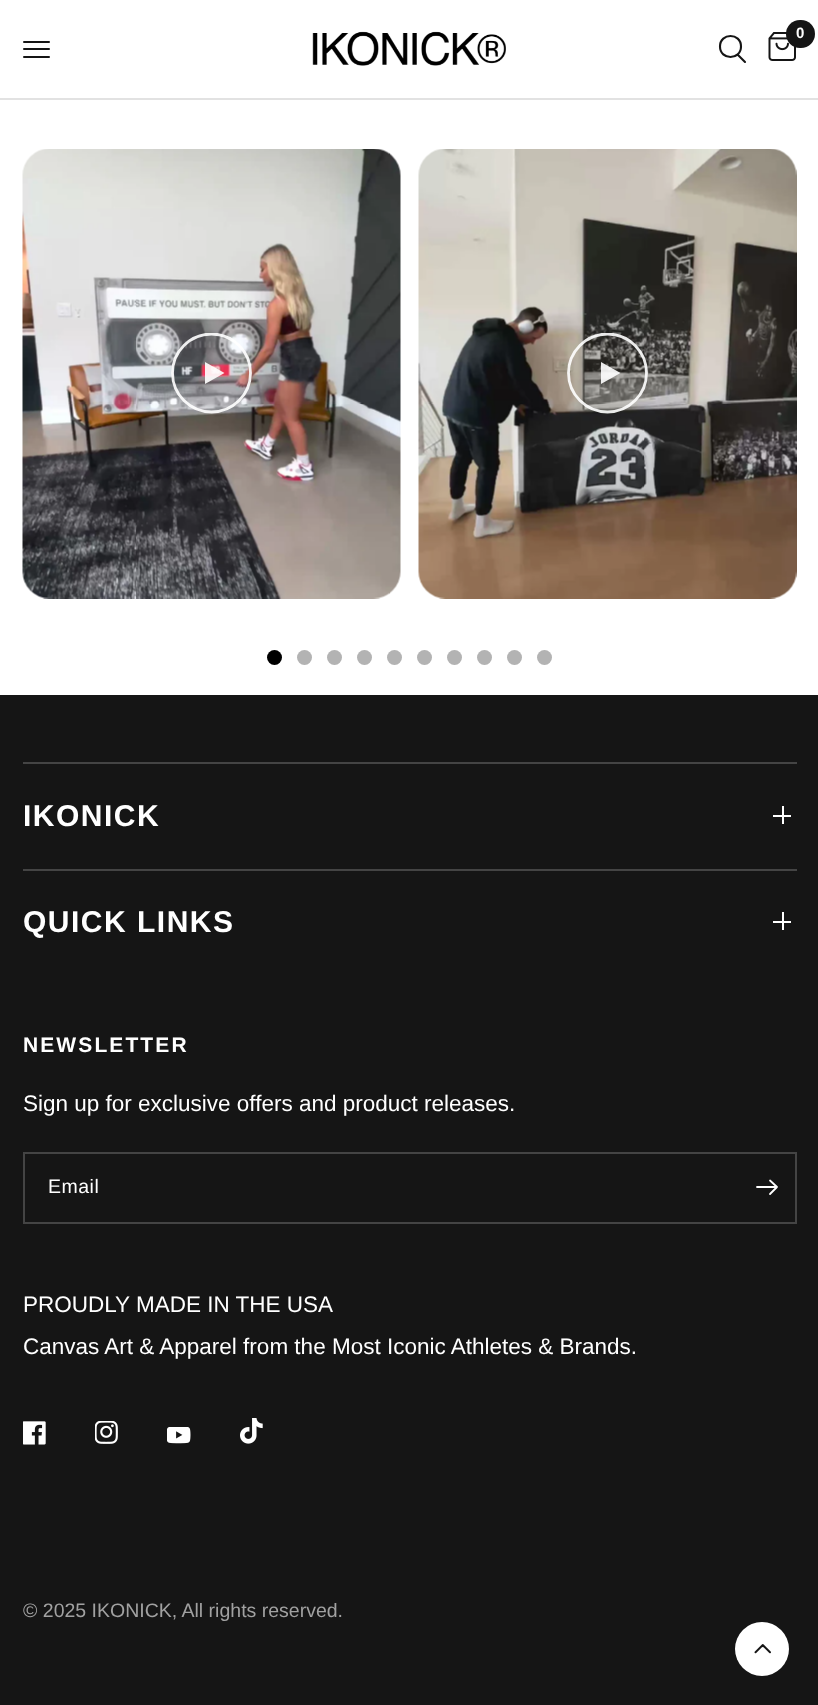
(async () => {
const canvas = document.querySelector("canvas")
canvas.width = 818
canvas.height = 1705
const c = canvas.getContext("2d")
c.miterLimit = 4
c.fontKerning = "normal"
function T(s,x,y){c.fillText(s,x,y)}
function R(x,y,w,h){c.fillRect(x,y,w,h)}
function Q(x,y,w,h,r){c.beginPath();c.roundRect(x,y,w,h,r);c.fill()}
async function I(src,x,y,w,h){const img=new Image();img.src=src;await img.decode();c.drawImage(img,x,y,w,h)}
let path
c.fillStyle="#fff"
R(0,0,818,1705)
c.fillStyle="#e2e2e2"
R(0,98,818,2)
c.fillStyle="#151515"
Q(23,41,27,2,1)
Q(23,48,27,2,1)
Q(23,56,27,2,1)
await I("1.png",312,31,194,35)
await I("2.png",768,32,28,29)
Q(786,20,29,28,14)
c.font="bold 15px Liberation Sans"
c.fillStyle="#fff"
T("0",796,38)
path = new Path2D("M738 55l7 7m-4-15.5c0 14-21 14-21 0c0-14 21-14 21 0z")
c.strokeStyle="#151515"
c.lineWidth=2.1
c.lineCap="round"
c.lineJoin="round"
c.stroke(path)
await I("3.png",22,149,379,450)
c.save()
c.beginPath()
c.rect(171,333,83,81)
c.clip()
c.beginPath()
c.arc(211.5,373,39,0,7)
c.strokeStyle="#ffffffe6"
c.lineWidth=2.8
c.stroke()
c.restore()
c.fillStyle="#ffffffe6"
path = new Path2D("M224.5 373l-19.5 11v-22z")
c.fill(path)
await I("4.png",418,149,379,450)
c.save()
c.beginPath()
c.rect(567,333,83,81)
c.clip()
c.beginPath()
c.arc(607.5,373,39,0,7)
c.strokeStyle="#ffffffe6"
c.lineWidth=2.8
c.stroke()
c.restore()
path = new Path2D("M620.5 373l-19.5 11v-22z")
c.fill(path)
c.fillStyle="#000"
c.beginPath()
c.arc(274.5,657.5,7.5,0,7)
c.fill()
c.fillStyle="#b3b3b3"
c.beginPath()
c.arc(304.5,657.5,7.5,0,7)
c.fill()
c.beginPath()
c.arc(334.5,657.5,7.5,0,7)
c.fill()
c.beginPath()
c.arc(364.5,657.5,7.5,0,7)
c.fill()
c.beginPath()
c.arc(394.5,657.5,7.5,0,7)
c.fill()
c.beginPath()
c.arc(424.5,657.5,7.5,0,7)
c.fill()
c.beginPath()
c.arc(454.5,657.5,7.5,0,7)
c.fill()
c.beginPath()
c.arc(484.5,657.5,7.5,0,7)
c.fill()
c.beginPath()
c.arc(514.5,657.5,7.5,0,7)
c.fill()
c.beginPath()
c.arc(544.5,657.5,7.5,0,7)
c.fill()
c.fillStyle="#151515"
R(0,695,818,1010)
c.fillStyle="#444"
R(23,762,774,2)
c.letterSpacing="1.5px"
c.font="bold 30px Liberation Sans"
c.fillStyle="#fff"
T("IKONICK",23,826)
R(782,806,2,18)
R(773,815,18,2)
c.fillStyle="#444"
R(23,869,774,2)
c.fillStyle="#fff"
T("QUICK LINKS",23,932)
R(782,912,2,18)
R(773,921,18,2)
c.letterSpacing="2.1px"
c.font="bold 21px Liberation Sans"
T("NEWSLETTER",23,1052)
c.letterSpacing="0px"
c.font="22.5px Liberation Sans"
T("Sign up for exclusive offers and product releases.",23,1111)
c.strokeStyle="#444"
c.lineWidth=2
c.lineJoin="miter"
c.strokeRect(24,1153,772,70)
c.letterSpacing="0.5px"
c.font="19.5px Liberation Sans"
T("Email",48,1193)
path = new Path2D("M757 1187h18m-5-6.5l7 6.5l-7 7")
c.strokeStyle="#fff"
c.lineWidth=1.8
c.lineJoin="round"
c.stroke(path)
c.letterSpacing="0px"
c.font="22.5px Liberation Sans"
T("PROUDLY MADE IN THE USA",23,1312)
T("Canvas Art & Apparel from the Most Iconic Athletes & Brands.",23,1354)
await I("5.png",23,1421,23,24)
await I("6.png",95,1421,23,23)
await I("7.png",167,1427,24,17)
await I("8.png",240,1418,23,26)
c.font="19.5px Liberation Sans"
c.fillStyle="#a1a1a1"
T("© 2025 IKONICK, All rights reserved.",23,1617)
c.fillStyle="#fff"
c.beginPath()
c.arc(762,1649,27,0,7)
c.fill()
await I("9.png",754,1644,17,10)
})()
